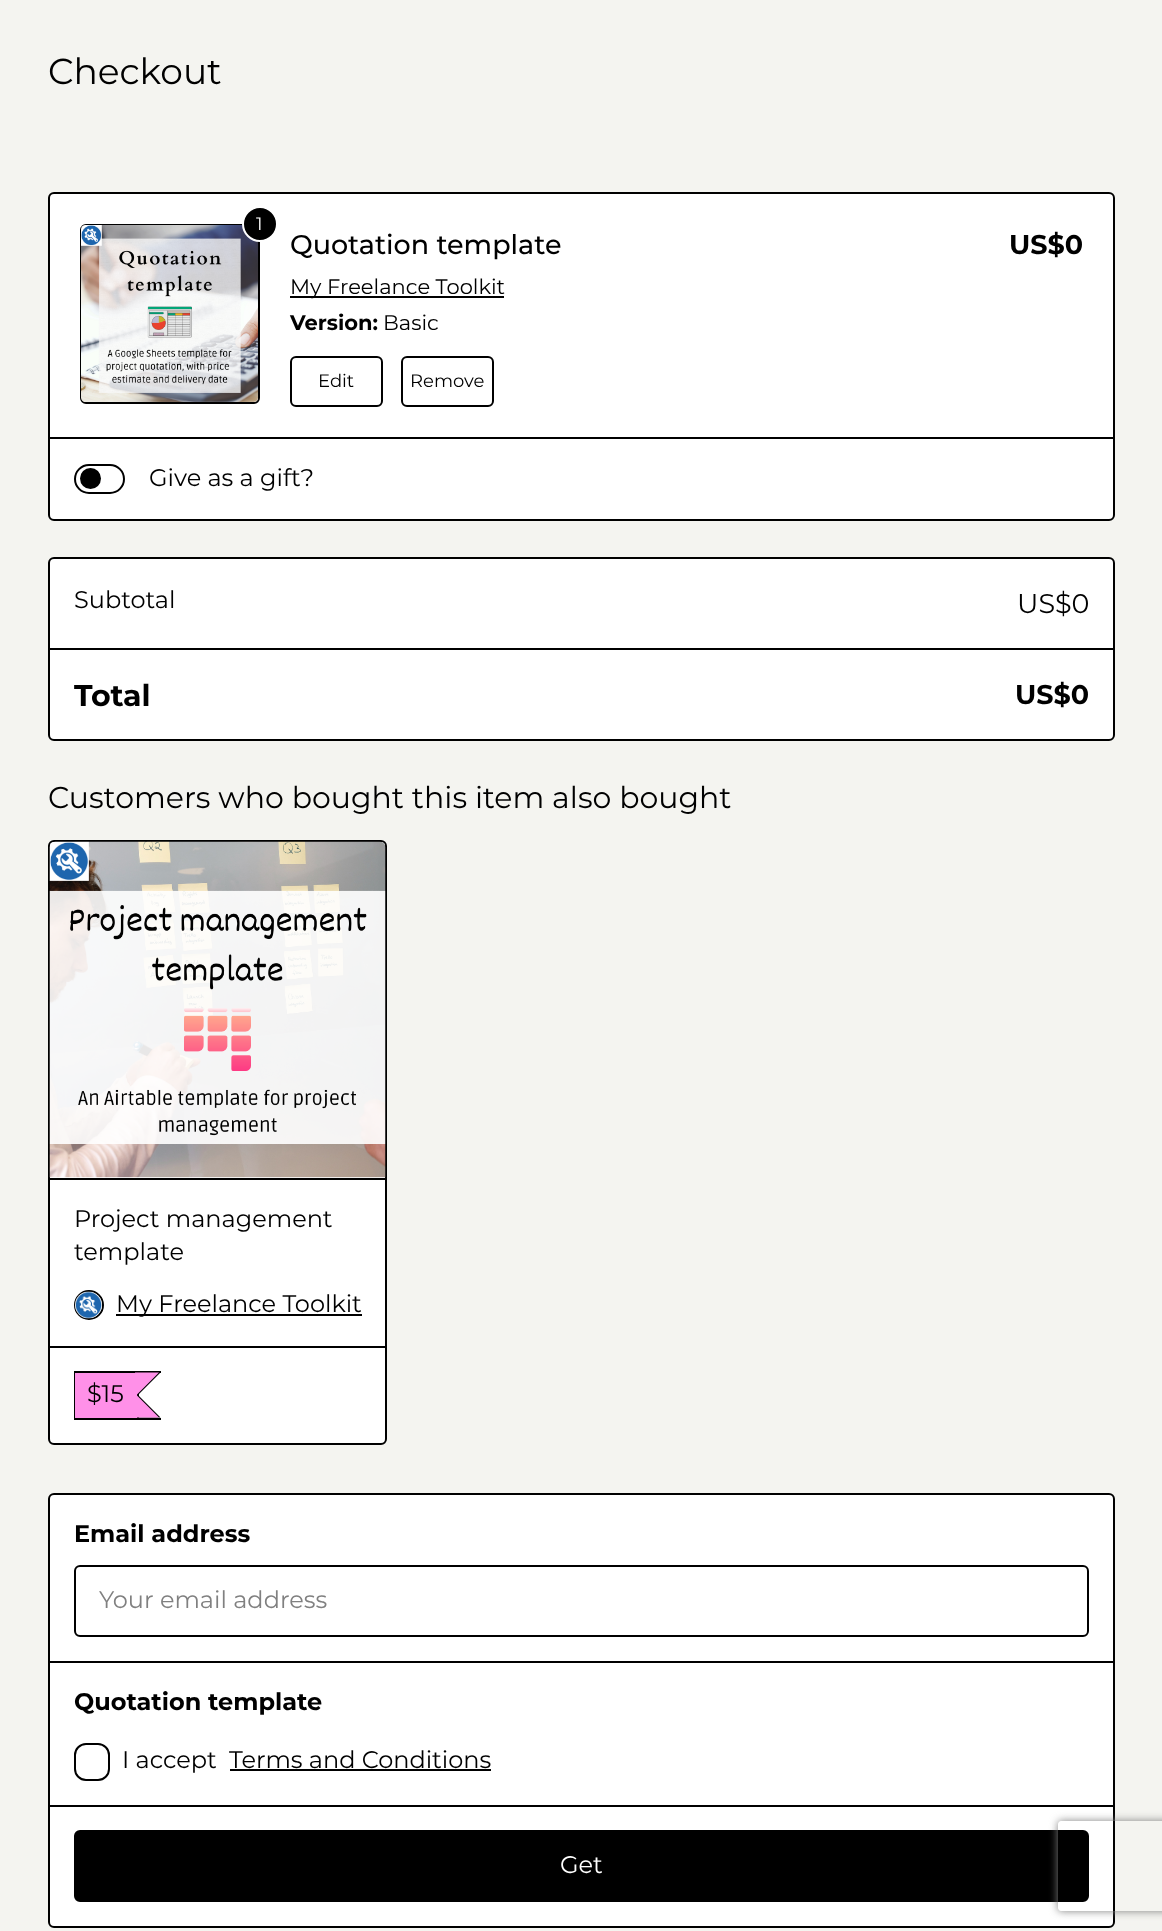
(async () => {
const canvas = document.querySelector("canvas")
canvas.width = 1162
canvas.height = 1931
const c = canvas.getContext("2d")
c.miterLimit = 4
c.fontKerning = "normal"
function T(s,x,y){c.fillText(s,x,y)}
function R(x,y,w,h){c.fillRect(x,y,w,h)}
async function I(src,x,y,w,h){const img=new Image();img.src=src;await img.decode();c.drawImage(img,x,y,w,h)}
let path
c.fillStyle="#f4f4f0"
R(0,0,1162,1931)
c.font="36px Montserrat"
c.fillStyle="#000"
T("Checkout",48,84)
c.fillStyle="#fff"
c.beginPath()
c.roundRect(49,193,1065,327,5)
c.fill()
c.strokeStyle="#000"
c.lineWidth=2
c.stroke()
c.beginPath()
c.roundRect(81,225,178,178,5)
c.stroke()
await I("1.png",81,225,177,177)
c.fillStyle="#000"
c.beginPath()
c.arc(260,224,17,0,7)
c.fill()
c.strokeStyle="#fff"
c.stroke()
c.font="18px Montserrat"
c.fillStyle="#fff"
T("1",256,230)
c.font="500 27px Montserrat"
c.fillStyle="#000"
T("Quotation template",290,254)
R(290,296,214,2)
c.font="21px Montserrat"
T("My Freelance Toolkit",290,294)
c.font="bold 21px Montserrat"
T("Version:",290,330)
c.font="21px Montserrat"
T("Basic",383,330)
c.beginPath()
c.roundRect(291,357,91,49,5)
c.strokeStyle="#000"
c.stroke()
c.font="18px Montserrat"
T("Edit",318,387)
c.beginPath()
c.roundRect(402,357,91,49,5)
c.stroke()
T("Remove",410,387)
c.font="bold 27px Montserrat"
T("US$0",1009,254)
R(50,437,1063,2)
c.beginPath()
c.roundRect(75,465,49,28,14)
c.stroke()
c.beginPath()
c.arc(90.5,478.5,10.5,0,7)
c.fill()
c.font="24px Montserrat"
T("Give as a gift?",149,486)
c.fillStyle="#fff"
c.beginPath()
c.roundRect(49,558,1065,182,5)
c.fill()
c.stroke()
c.fillStyle="#000"
T("Subtotal",74,608)
c.font="27px Montserrat"
T("US$0",1017,613)
R(50,648,1063,2)
c.font="bold 30px Montserrat"
T("Total",74,706)
c.font="bold 27px Montserrat"
T("US$0",1015,704)
c.font="30px Montserrat"
T("Customers who bought this item also bought",48,808)
c.fillStyle="#fff"
c.beginPath()
c.roundRect(49,841,337,603,5)
c.fill()
c.stroke()
c.fillStyle="#000"
R(50,1178,336,2)
await I("2.png",49,841,337,337)
R(50,1346,336,2)
c.font="24px Montserrat"
T("Project management",74,1227)
T("template",74,1260)
c.beginPath()
c.arc(89,1305,14,0,7)
c.stroke()
await I("3.png",75,1291,27,28)
R(116,1314,246,2)
T("My Freelance Toolkit",116,1312)
R(74,1371,87,2)
R(74,1418,87,2)
R(74,1371,2,48)
path = new Path2D("M136.5 1372.5h24l-22.5 22.5zm24 45h-24l1.5-22.5z")
c.fill(path)
R(137,1392,2,26)
c.fillStyle="#ff90e8"
path = new Path2D("M135 1372.5h24l-22.5 22.5zm24 45h-24l1.5-22.5z")
c.fill(path)
R(135,1373,2,45)
R(75,1373,60,45)
c.fillStyle="#000"
T("$15",87,1402)
c.fillStyle="#fff"
c.beginPath()
c.roundRect(49,1494,1065,433,5)
c.fill()
c.stroke()
c.font="bold 24px Montserrat"
c.fillStyle="#000"
T("Email address",74,1542)
c.beginPath()
c.roundRect(75,1566,1013,70,5)
c.stroke()
c.font="24px Montserrat"
c.fillStyle="#808080"
T("Your email address",99,1608)
c.fillStyle="#000"
R(50,1661,1063,2)
c.font="bold 24px Montserrat"
T("Quotation template",74,1710)
c.beginPath()
c.roundRect(75,1744,34,36,11)
c.stroke()
c.font="24px Montserrat"
T("I accept",122,1768)
T("Terms and Conditions",229,1768)
R(230,1769,261,2)
R(50,1805,1063,2)
c.beginPath()
c.roundRect(75,1831,1013,70,5)
c.fill()
c.stroke()
c.fillStyle="#fff"
T("Get",560,1873)
c.save()
path = new Path2D("M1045 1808h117v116h-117zm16 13h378c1.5 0 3 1.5 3 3v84c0 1.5-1.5 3-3 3h-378c-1.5 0-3-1.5-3-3v-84c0-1.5 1.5-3 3-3z")
c.clip(path,"evenodd")
c.fillStyle="#808080"
c.filter="blur(4px)"
c.beginPath()
c.roundRect(1058,1821,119,90,3)
c.fill()
c.filter="none"
c.restore()
})()
